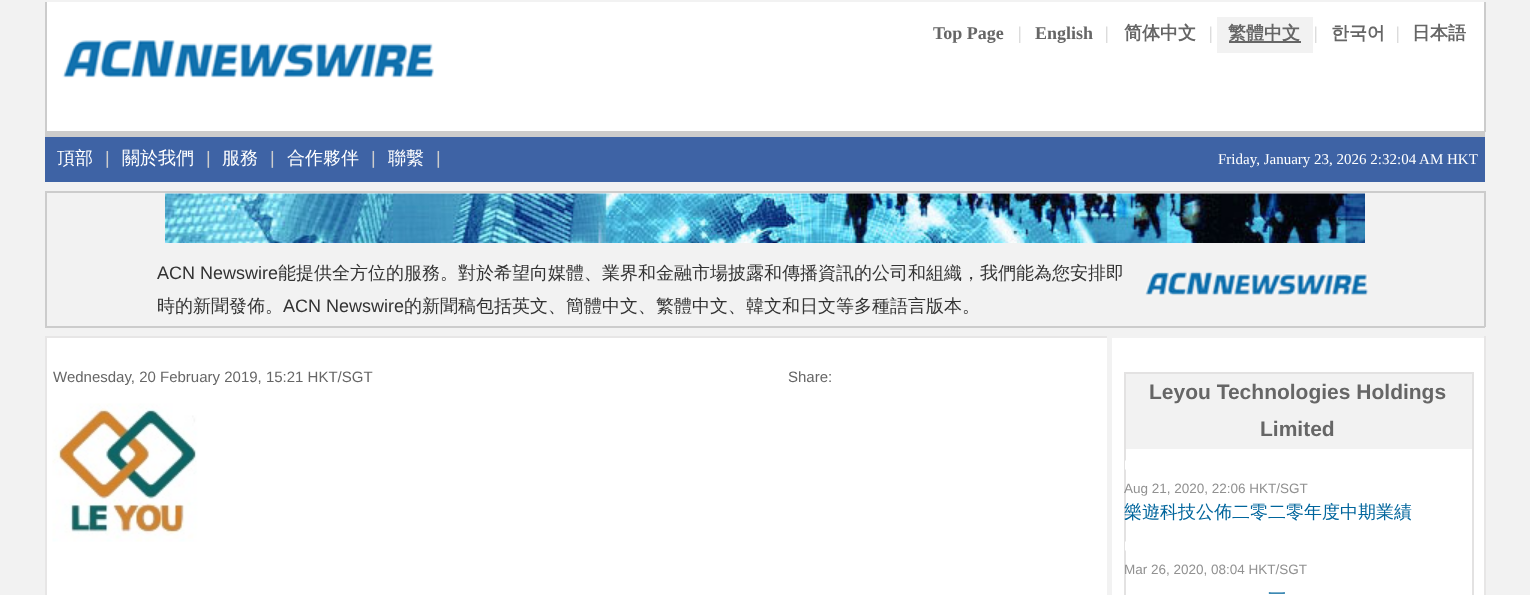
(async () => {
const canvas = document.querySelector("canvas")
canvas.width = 1530
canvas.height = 595
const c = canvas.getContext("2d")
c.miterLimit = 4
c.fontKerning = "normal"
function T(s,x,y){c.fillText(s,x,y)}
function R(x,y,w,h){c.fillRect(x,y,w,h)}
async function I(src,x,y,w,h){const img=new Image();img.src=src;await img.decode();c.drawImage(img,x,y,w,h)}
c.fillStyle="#f2f2f2"
R(0,0,1530,595)
c.fillStyle="#fff"
R(47,2,1437,129)
c.fillStyle="#ccc"
R(1484,2,2,130)
R(45,131,1440,6)
R(45,2,2,130)
c.font="bold 18px Liberation Serif"
c.fillStyle="#666"
T("Top Page",933,39)
c.font="18px Liberation Serif"
c.fillStyle="#ccc"
T("|",1018,39)
c.font="bold 18px Liberation Serif"
c.fillStyle="#666"
T("English",1035,39)
c.font="18px Liberation Serif"
c.fillStyle="#ccc"
T("|",1105,39)
c.font="bold 18px WenQuanYi Zen Hei"
c.fillStyle="#666"
T("简体中文",1124,39)
c.font="18px Liberation Serif"
c.fillStyle="#ccc"
T("|",1209,39)
c.fillStyle="#f2f2f2"
R(1217,17,96,36)
c.fillStyle="#666"
R(1229,41,72,2)
c.font="bold 18px WenQuanYi Zen Hei"
T("繁體中文",1228,39)
c.font="18px Liberation Serif"
c.fillStyle="#ccc"
T("|",1314,39)
c.font="bold 18px WenQuanYi Zen Hei"
c.fillStyle="#666"
T("한국어",1331,39)
c.font="18px Liberation Serif"
c.fillStyle="#ccc"
T("|",1396,39)
c.font="bold 18px WenQuanYi Zen Hei"
c.fillStyle="#666"
T("日本語",1412,39)
await I("1.png",62,40,372,38)
c.fillStyle="#3e63a5"
R(45,137,1440,45)
c.font="500 18px WenQuanYi Zen Hei"
c.fillStyle="#fff"
T("頂部",57,164)
c.font="18px Liberation Sans"
c.fillStyle="#ccc"
T("|",105,164)
c.font="500 18px WenQuanYi Zen Hei"
c.fillStyle="#fff"
T("關於我們",122,164)
c.font="18px Liberation Sans"
c.fillStyle="#ccc"
T("|",206,164)
c.font="500 18px WenQuanYi Zen Hei"
c.fillStyle="#fff"
T("服務",222,164)
c.font="18px Liberation Sans"
c.fillStyle="#ccc"
T("|",270,164)
c.font="500 18px WenQuanYi Zen Hei"
c.fillStyle="#fff"
T("合作夥伴",287,164)
c.font="18px Liberation Sans"
c.fillStyle="#ccc"
T("|",371,164)
c.font="500 18px WenQuanYi Zen Hei"
c.fillStyle="#fff"
T("聯繫",388,164)
c.font="18px Liberation Sans"
c.fillStyle="#ccc"
T("|",436,164)
c.font="15px Liberation Serif"
c.fillStyle="#fff"
T("Friday, January 23, 2026 2:32:04 AM HKT",1218,164)
c.fillStyle="#ccc"
R(45,191,1440,2)
R(1484,191,2,136)
R(45,326,1440,2)
R(45,191,2,136)
await I("2.png",165,193,1200,50)
c.font="18px Liberation Sans"
c.fillStyle="#333"
T("ACN Newswire",157,279)
c.font="500 18px WenQuanYi Zen Hei"
T("能提供全方位的服務。對於希望向媒體、業界和金融市場披露和傳播資訊的公司和組織，我們能為您安排即",278,279)
T("時的新聞發佈。",157,312)
c.font="18px Liberation Sans"
T("ACN Newswire",283,312)
c.font="500 18px WenQuanYi Zen Hei"
T("的新聞稿包括英文、簡體中文、繁體中文、韓文和日文等多種語言版本。",404,312)
await I("3.png",1144,271,225,26)
c.fillStyle="#fff"
R(47,338,1060,257)
c.fillStyle="#e7e6e6"
R(45,336,1065,2)
R(45,336,2,259)
c.font="15px Liberation Sans"
c.fillStyle="#666"
T("Wednesday, 20 February 2019, 15:21 HKT/SGT",53,382)
T("Share:",788,382)
await I("4.png",52,403,146,139)
c.fillStyle="#fff"
R(1112,338,372,257)
c.fillStyle="#e7e6e6"
R(1484,336,2,259)
c.fillStyle="#f2f2f2"
R(1107,335,3,3)
c.fillStyle="#e3e2e2"
R(1124,372,349,2)
R(1472,372,2,223)
R(1124,372,2,223)
c.fillStyle="#f2f2f2"
R(1126,374,346,75)
c.font="bold 21px Liberation Sans"
c.fillStyle="#666"
T("Leyou Technologies Holdings",1149,399)
T("Limited",1260,436)
await I("5.png",1125,460,1,10)
c.font="13.5px Liberation Sans"
c.fillStyle="#919191"
T("Aug 21, 2020, 22:06 HKT/SGT",1124,493)
c.font="500 18px WenQuanYi Zen Hei"
c.fillStyle="#00659c"
T("樂遊科技公佈二零二零年度中期業績",1124,518)
await I("5.png",1125,541,1,10)
c.font="13.5px Liberation Sans"
c.fillStyle="#919191"
T("Mar 26, 2020, 08:04 HKT/SGT",1124,574)
c.font="500 18px WenQuanYi Zen Hei"
c.fillStyle="#00659c"
T("一",1268,600)
})()
